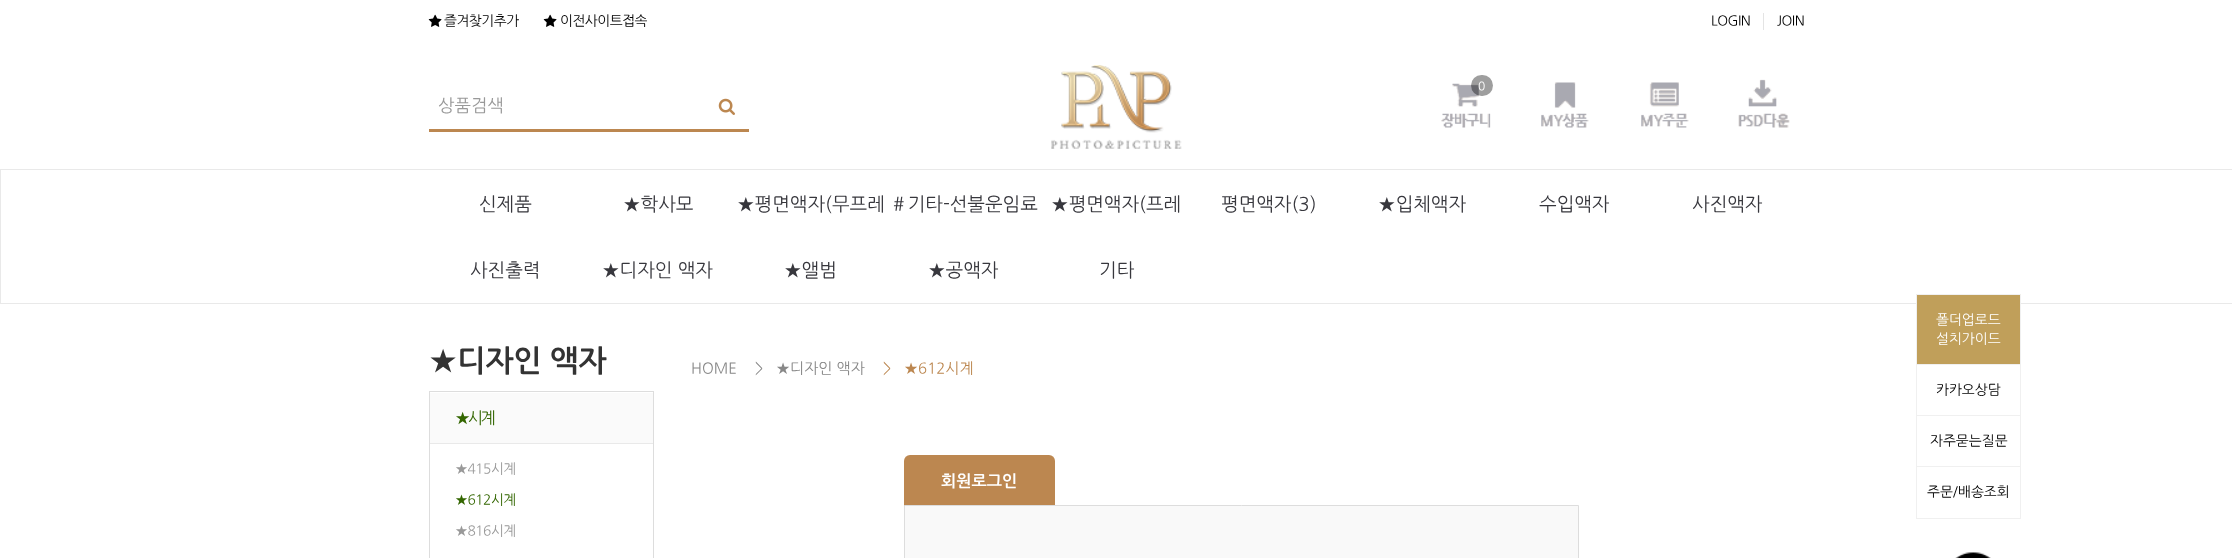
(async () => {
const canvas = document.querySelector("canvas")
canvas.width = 2232
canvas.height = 558
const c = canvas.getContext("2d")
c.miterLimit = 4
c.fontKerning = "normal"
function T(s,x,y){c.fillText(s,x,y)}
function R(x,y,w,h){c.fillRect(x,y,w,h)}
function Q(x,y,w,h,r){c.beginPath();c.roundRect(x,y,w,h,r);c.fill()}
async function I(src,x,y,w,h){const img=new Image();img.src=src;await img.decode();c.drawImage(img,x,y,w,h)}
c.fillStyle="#fff"
R(0,0,2232,558)
await I("1.png",428,14,14,13)
c.letterSpacing="-0.5px"
c.font="13.75px NanumGothic"
c.fillStyle="#000"
T("즐겨찾기추가",444,25)
await I("1.png",543,14,14,13)
T("이전사이트접속",560,25)
c.fillStyle="#e4e4e4"
R(1763,13,1,17)
c.fillStyle="#000"
T("LOGIN",1711,25)
T("JOIN",1777,25)
await I("2.png",1051,65,131,84)
await I("3.png",1441,83,50,45)
c.fillStyle="#00000061"
Q(1471,75,22,21,10.5)
c.letterSpacing="0px"
c.font="12px NanumGothic"
c.fillStyle="#fff"
T("0",1478,90)
await I("4.png",1541,82,48,46)
await I("5.png",1641,82,48,46)
await I("6.png",1738,79,52,49)
c.font="17.5px NanumGothic"
c.fillStyle="#999"
T("상품검색",438,111)
c.fillStyle="#bc8750"
R(429,129,320,3)
await I("7.png",718,98,17,17)
c.strokeStyle="#e9e9e9"
c.strokeRect(.5,169.5,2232,134)
c.font="18.75px NanumGothic"
c.fillStyle="#37373d"
T("신제품",479,210)
T("★학사모",623,210)
T("★평면액자(무프레 ＃기타-선불운임료",737,210)
T("★평면액자(프레",1051,210)
T("평면액자(3)",1221,210)
T("★입체액자",1378,210)
T("수입액자",1539,210)
T("사진액자",1692,210)
T("사진출력",470,276)
T("★디자인 액자",602,276)
T("★앨범",784,276)
T("★공액자",928,276)
T("기타",1099,276)
c.font="bold 30px NanumGothic"
c.fillStyle="#333"
T("★디자인 액자",429,370)
c.strokeStyle="#ddd"
c.strokeRect(429.5,391.5,224,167)
c.fillStyle="#fafafa"
R(430,393,223,50)
c.letterSpacing="-2.5px"
c.font="16.25px NanumGothic"
c.fillStyle="#360"
T("★시계",455,423)
c.fillStyle="#e9e9e9"
R(430,443,223,1)
c.letterSpacing="-0.5px"
c.font="13.75px NanumGothic"
c.fillStyle="#999"
T("★415시계",455,473)
c.fillStyle="#360"
T("★612시계",455,504)
c.fillStyle="#999"
T("★816시계",455,535)
c.letterSpacing="0px"
c.font="15px NanumGothic"
c.fillStyle="#888"
T("HOME",691,373)
T(">",755,373)
T("★디자인 액자",776,373)
c.fillStyle="#bc8750"
T(">",883,373)
T("★612시계",904,373)
c.beginPath()
c.roundRect(904,455,151,51,[6,6,0,0])
c.fill()
c.font="bold 16.25px NanumGothic"
c.fillStyle="#fff"
T("회원로그인",941,486)
c.fillStyle="#f9f9f9"
c.beginPath()
c.rect(904.5,505.5,674,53)
c.fill()
c.stroke()
c.fillStyle="#c09f5a"
c.beginPath()
c.rect(1916.5,294.5,104,70)
c.fill()
c.strokeStyle="#f0f0f0"
c.stroke()
c.font="13.75px NanumGothic"
c.fillStyle="#fff"
T("폴더업로드",1936,324)
T("설치가이드",1936,343)
c.strokeRect(1916.5,364.5,104,51)
c.fillStyle="#000"
T("카카오상담",1936,394)
c.strokeRect(1916.5,415.5,104,52)
T("자주묻는질문",1930,445)
c.fillStyle="#fff"
R(1917,467,103,1)
c.strokeRect(1916.5,466.5,104,52)
c.fillStyle="#000"
T("주문/배송조회",1927,496)
await I("8.png",1955,552,36,6)
})()
